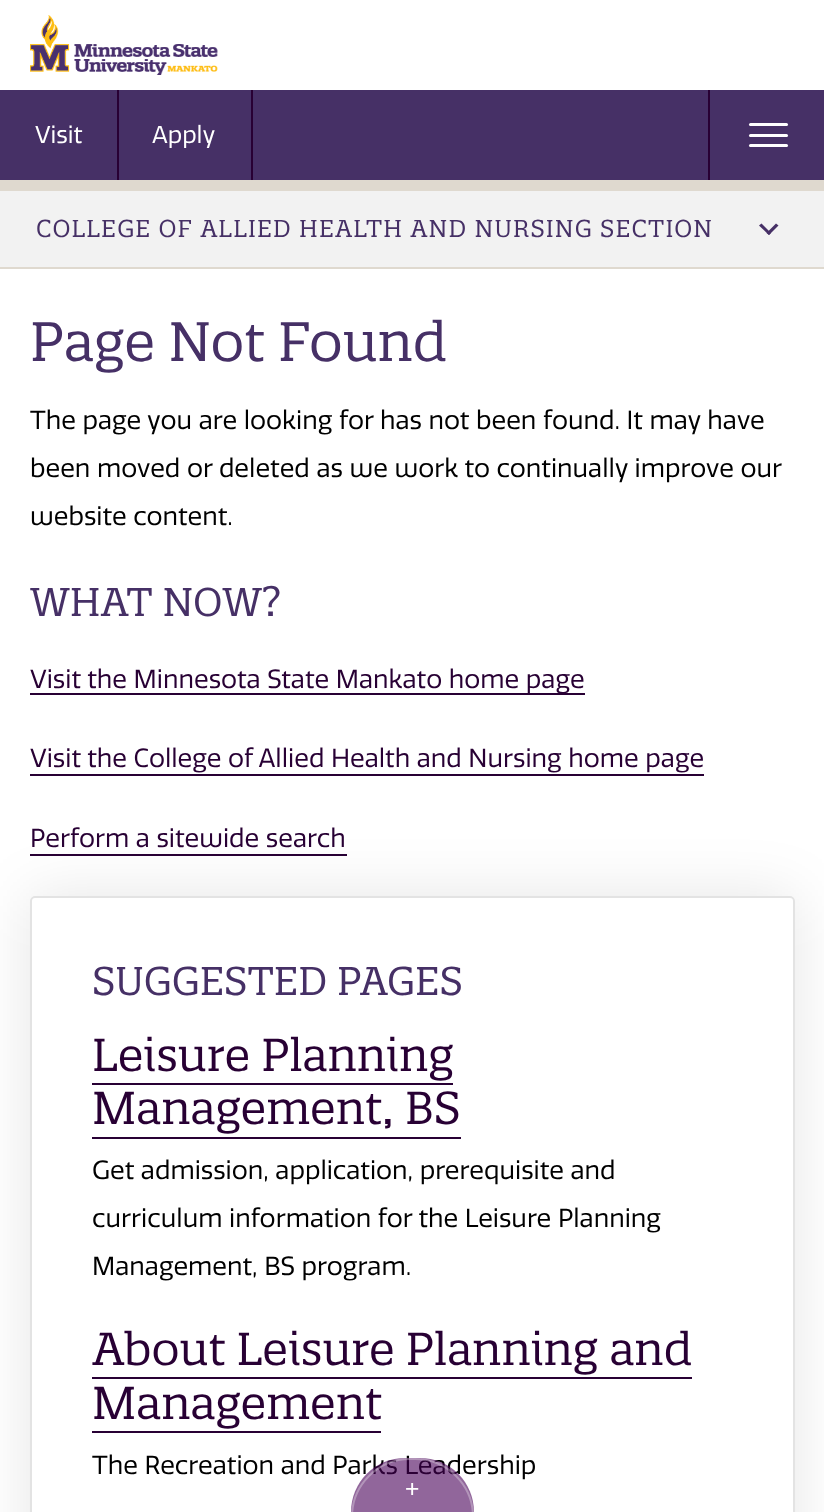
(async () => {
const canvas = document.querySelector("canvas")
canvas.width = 824
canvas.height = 1512
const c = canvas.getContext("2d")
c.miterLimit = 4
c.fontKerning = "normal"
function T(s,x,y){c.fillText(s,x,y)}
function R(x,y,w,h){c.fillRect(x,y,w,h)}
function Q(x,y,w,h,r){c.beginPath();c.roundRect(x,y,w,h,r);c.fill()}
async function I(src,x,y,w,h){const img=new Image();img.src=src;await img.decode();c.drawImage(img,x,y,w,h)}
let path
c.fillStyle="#fff"
R(0,0,824,1512)
await I("1.png",30,15,188,60)
c.fillStyle="#463066"
R(0,90,824,90)
c.fillStyle="#280034"
R(117,90,2,90)
c.font="23.75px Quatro"
c.fillStyle="#fff"
T("Visit",35,143)
c.fillStyle="#280034"
R(251,90,2,90)
c.fillStyle="#fff"
T("Apply",152,143)
c.fillStyle="#280034"
R(708,90,2,90)
c.fillStyle="#fff"
Q(749,123,39,3,1.5)
Q(749,134,39,3,1.5)
Q(749,144,39,3,1.5)
c.fillStyle="#dfd9cf"
R(0,180,824,11)
c.fillStyle="#f2f2f2"
R(0,191,824,76)
c.fillStyle="#dfd9cf"
R(0,267,824,2)
c.letterSpacing="1.2px"
c.font="23.75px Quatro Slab"
c.fillStyle="#463066"
T("COLLEGE OF ALLIED HEALTH AND NURSING SECTION",36,237)
path = new Path2D("M776 223.5l2.5 2l-9.5 9.5l-2.5-2z")
c.fill(path)
path = new Path2D("M761.5 223.5l9.5 9.5l-2 2l-10-9.5z")
c.fill(path)
c.letterSpacing="0px"
c.font="54px Quatro Slab"
T("Page Not Found",30,361)
c.font="25.5px Quatro"
c.fillStyle="#000"
T("The page you are looking for has not been found. It may have",30,429)
T("been moved or deleted as we work to continually improve our",30,477)
T("website content.",30,525)
c.font="39px Quatro Slab"
c.fillStyle="#463066"
T("WHAT NOW?",30,616)
c.fillStyle="#280034"
R(30,693,555,2)
c.font="25.5px Quatro"
T("Visit the Minnesota State Mankato home page",30,688)
T("Visit the College of Allied Health and Nursing home page",30,767)
R(30,774,674,2)
c.save()
path = new Path2D("M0 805h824v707h-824zm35 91h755c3 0 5 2 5 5v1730c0 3-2 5-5 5h-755c-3 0-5-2-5-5v-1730c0-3 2-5 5-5z")
c.clip(path,"evenodd")
c.fillStyle="#0000001a"
c.filter="blur(30px)"
c.beginPath()
c.roundRect(30,896,765,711,5)
c.fill()
c.filter="none"
c.restore()
T("Perform a sitewide search",30,847)
R(30,854,317,2)
c.beginPath()
c.roundRect(31,897,763,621,4)
c.strokeStyle="#e3e3e3"
c.lineWidth=2
c.stroke()
c.font="39px Quatro Slab"
c.fillStyle="#463066"
T("SUGGESTED PAGES",92,995)
c.font="44.9px Quatro Slab"
c.fillStyle="#280034"
T("Leisure Planning",92,1071)
R(92,1083,361,2)
T("Management, BS",92,1124)
R(92,1137,369,2)
c.font="25.5px Quatro"
c.fillStyle="#000"
T("Get admission, application, prerequisite and",92,1179)
T("curriculum information for the Leisure Planning",92,1227)
T("Management, BS program.",92,1275)
c.font="44.9px Quatro Slab"
c.fillStyle="#280034"
T("About Leisure Planning and",92,1365)
R(92,1377,600,2)
T("Management",92,1419)
R(92,1431,289,2)
c.font="25.5px Quatro"
c.fillStyle="#000"
T("The Recreation and Parks Leadership",92,1474)
c.fillStyle="#48005999"
c.beginPath()
c.roundRect(351,1458,123,54,[61.5,61.5,0,0])
c.fill()
c.beginPath()
c.roundRect(352,1459,121,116,60.5)
c.strokeStyle="#ffffff4d"
c.stroke()
c.fillStyle="#fff"
T("+",405,1496)
})()
